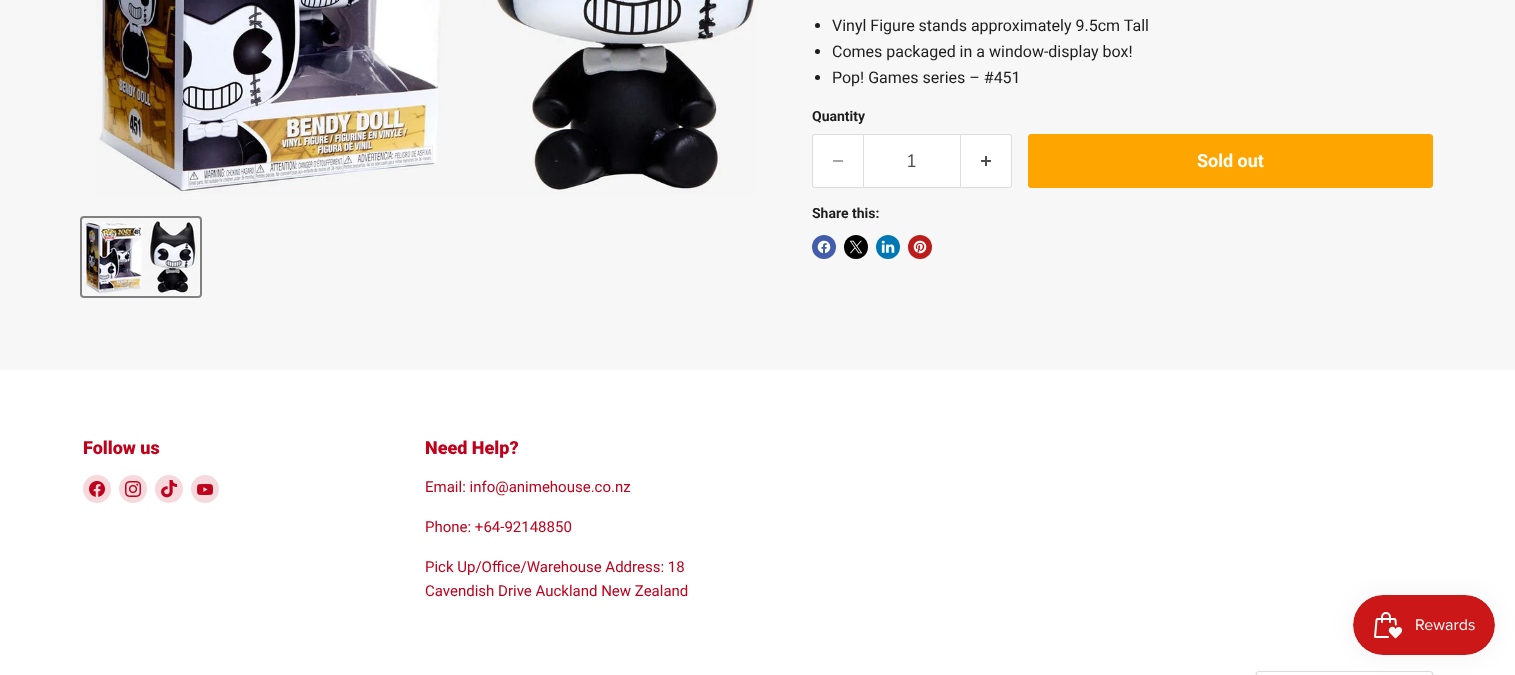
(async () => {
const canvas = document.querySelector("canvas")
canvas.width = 1515
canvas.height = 675
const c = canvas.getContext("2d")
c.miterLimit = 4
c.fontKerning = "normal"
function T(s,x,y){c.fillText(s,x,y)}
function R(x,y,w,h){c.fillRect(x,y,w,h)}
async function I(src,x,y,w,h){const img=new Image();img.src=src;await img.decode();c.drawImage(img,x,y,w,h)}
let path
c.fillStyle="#f7f7f7"
R(0,0,1515,675)
await I("1.png",96,0,661,194)
c.beginPath()
c.roundRect(81,217,120,80,3)
c.strokeStyle="#818181"
c.lineWidth=2
c.stroke()
await I("2.png",83,219,115,75)
c.fillStyle="#1d1d1d"
c.beginPath()
c.arc(817.5,25.5,2.5,0,7)
c.fill()
c.font="16px Roboto"
T("Vinyl Figure stands approximately 9.5cm Tall",832,31)
c.beginPath()
c.arc(817.5,51.5,2.5,0,7)
c.fill()
T("Comes packaged in a window-display box!",832,57)
c.beginPath()
c.arc(817.5,77.5,2.5,0,7)
c.fill()
T("Pop! Games series – #451",832,83)
c.font="bold 14px Roboto"
T("Quantity",812,121)
c.fillStyle="#fff"
c.beginPath()
c.roundRect(812,134,51,54,[3,0,0,3])
c.fill()
c.fillStyle="#ddd"
path = new Path2D("M815 134h48v54h-48c-2 0-3-1-3-3v-48c0-2 1-3 3-3zm0 1h48v52h-48c-1 0-2-1-2-2v-48c0-1 1-2 2-2z")
c.fill(path,"evenodd")
c.fillStyle="#a6a6a6"
R(833,160,10,2)
c.fillStyle="#fff"
c.beginPath()
c.rect(863.5,134.5,97,53)
c.fill()
c.strokeStyle="#ddd"
c.lineWidth=1
c.stroke()
c.font="18px Nunito Sans"
c.fillStyle="#4d4d4d"
T("1",906,167)
c.fillStyle="#fff"
c.beginPath()
c.roundRect(961,134,51,54,[0,3,3,0])
c.fill()
c.fillStyle="#ddd"
path = new Path2D("M961 134h48c2 0 3 1 3 3v48c0 2-1 3-3 3h-48zm0 1h48c1 0 2 1 2 2v48c0 1-1 2-2 2h-48z")
c.fill(path,"evenodd")
await I("3.png",981,156,10,10)
c.fillStyle="#ffa500"
c.beginPath()
c.roundRect(1028.5,134.5,404,53,2.5)
c.fill()
c.strokeStyle="#ffa500"
c.stroke()
c.font="bold 18px Roboto"
c.fillStyle="#fff"
T("Sold out",1197,167)
c.font="bold 14px Roboto"
c.fillStyle="#1d1d1d"
T("Share this:",812,218)
c.fillStyle="#425dab"
c.beginPath()
c.arc(824,247,12,0,7)
c.fill()
await I("4.png",817,240,14,14)
c.fillStyle="#000"
c.beginPath()
c.arc(856,247,12,0,7)
c.fill()
await I("5.png",849,240,14,14)
c.fillStyle="#0077b5"
c.beginPath()
c.arc(888,247,12,0,7)
c.fill()
await I("6.png",881,240,14,13)
c.fillStyle="#bd1c1c"
c.beginPath()
c.arc(920,247,12,0,7)
c.fill()
await I("7.png",913,240,14,14)
c.fillStyle="#fff"
R(0,370,1515,305)
c.font="900 18px Roboto"
c.fillStyle="#bf011c"
T("Follow us",83,454)
c.fillStyle="#f5d9dd"
c.beginPath()
c.arc(97,489,14,0,7)
c.fill()
await I("8.png",89,481,16,16)
c.beginPath()
c.arc(133,489,14,0,7)
c.fill()
await I("9.png",125,481,16,16)
c.beginPath()
c.arc(169,489,14,0,7)
c.fill()
await I("10.png",161,480,16,18)
c.beginPath()
c.arc(205,489,14,0,7)
c.fill()
await I("11.png",197,484,16,11)
c.fillStyle="#bf011c"
T("Need Help?",425,454)
c.font="15px Roboto"
T("Email: info@animehouse.co.nz",425,492)
T("Phone: +64-92148850",425,532)
T("Pick Up/Office/Warehouse Address: 18",425,572)
T("Cavendish Drive Auckland New Zealand",425,596)
c.fillStyle="#00000026"
c.filter="blur(1px)"
c.beginPath()
c.roundRect(1256,672,177,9,3)
c.fill()
c.filter="none"
c.fillStyle="#fff"
c.beginPath()
c.roundRect(1256.5,671.5,176,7,2.5)
c.fill()
c.strokeStyle="#ddd"
c.stroke()
c.fillStyle="#0000000d"
c.filter="blur(12.5px)"
c.beginPath()
c.roundRect(1353,595,142,60,30)
c.fill()
c.filter="none"
await I("12.png",1353,595,142,60)
})()
